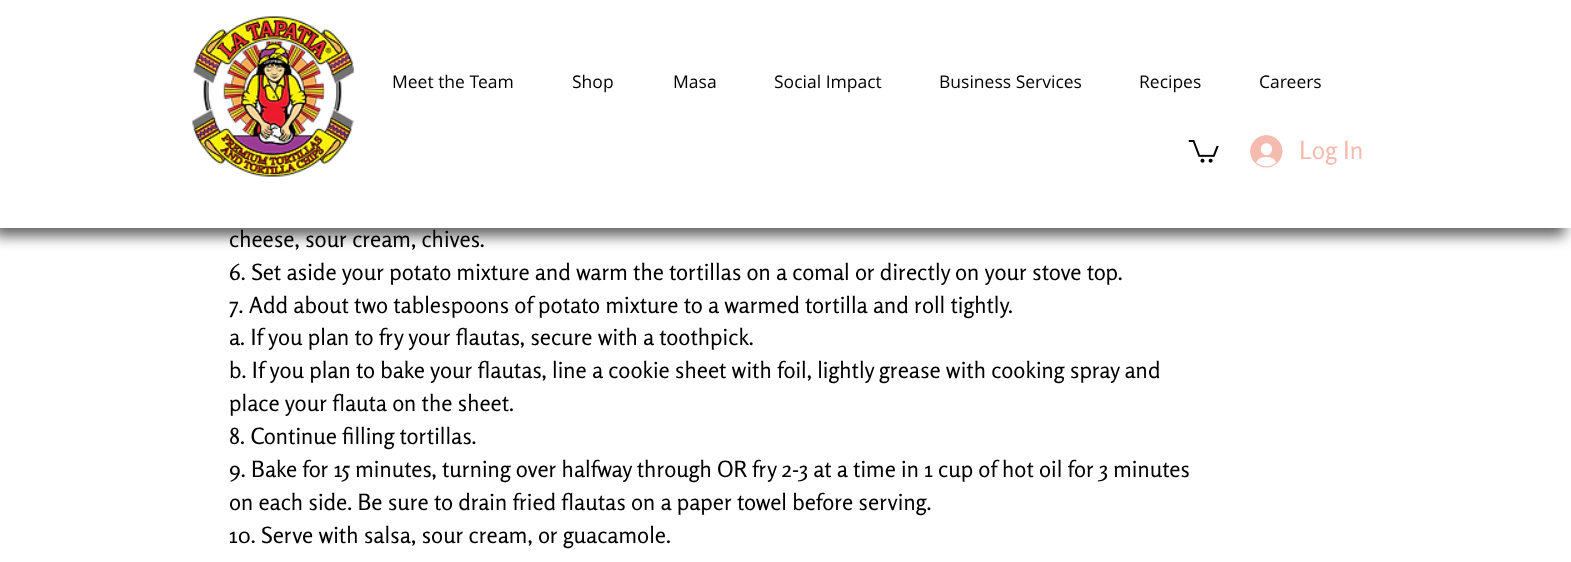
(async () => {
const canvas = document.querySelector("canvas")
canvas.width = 1571
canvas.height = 562
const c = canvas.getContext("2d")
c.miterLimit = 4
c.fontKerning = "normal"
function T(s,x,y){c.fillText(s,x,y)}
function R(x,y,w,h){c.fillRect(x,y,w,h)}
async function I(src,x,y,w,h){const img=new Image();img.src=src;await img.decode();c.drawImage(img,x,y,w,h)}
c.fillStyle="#fff"
R(0,0,1571,562)
c.fillStyle="#0000009e"
c.filter="blur(7px)"
c.beginPath()
c.rect(-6,9,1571,227)
c.fill()
c.filter="none"
c.fillStyle="#fff"
R(0,0,1571,228)
await I("1.png",192,16,162,161)
c.font="17.5px Open Sans"
c.fillStyle="#000"
T("Meet the Team",392,88)
T("Shop",572,88)
T("Masa",673,88)
T("Social Impact",774,88)
T("Business Services",939,88)
T("Recipes",1139,88)
T("Careers",1259,88)
await I("2.png",1188,140,31,23)
await I("3.png",1250,135,33,33)
c.font="25px Rosario"
c.fillStyle="#f6bbaf"
T("Log In",1299,159)
c.font="22.5px Rosario"
c.fillStyle="#000"
T("cheese, sour cream, chives.",229,247)
T("6. Set aside your potato mixture and warm the tortillas on a comal or directly on your stove top.",229,280)
T("7. Add about two tablespoons of potato mixture to a warmed tortilla and roll tightly.",229,313)
T("a. If you plan to fry your flautas, secure with a toothpick.",229,345)
T("b. If you plan to bake your flautas, line a cookie sheet with foil, lightly grease with cooking spray and",229,378)
T("place your flauta on the sheet.",229,411)
T("8. Continue filling tortillas.",229,444)
T("9. Bake for 15 minutes, turning over halfway through OR fry 2-3 at a time in 1 cup of hot oil for 3 minutes",229,477)
T("on each side. Be sure to drain fried flautas on a paper towel before serving.",229,510)
T("10. Serve with salsa, sour cream, or guacamole.",229,543)
})()
